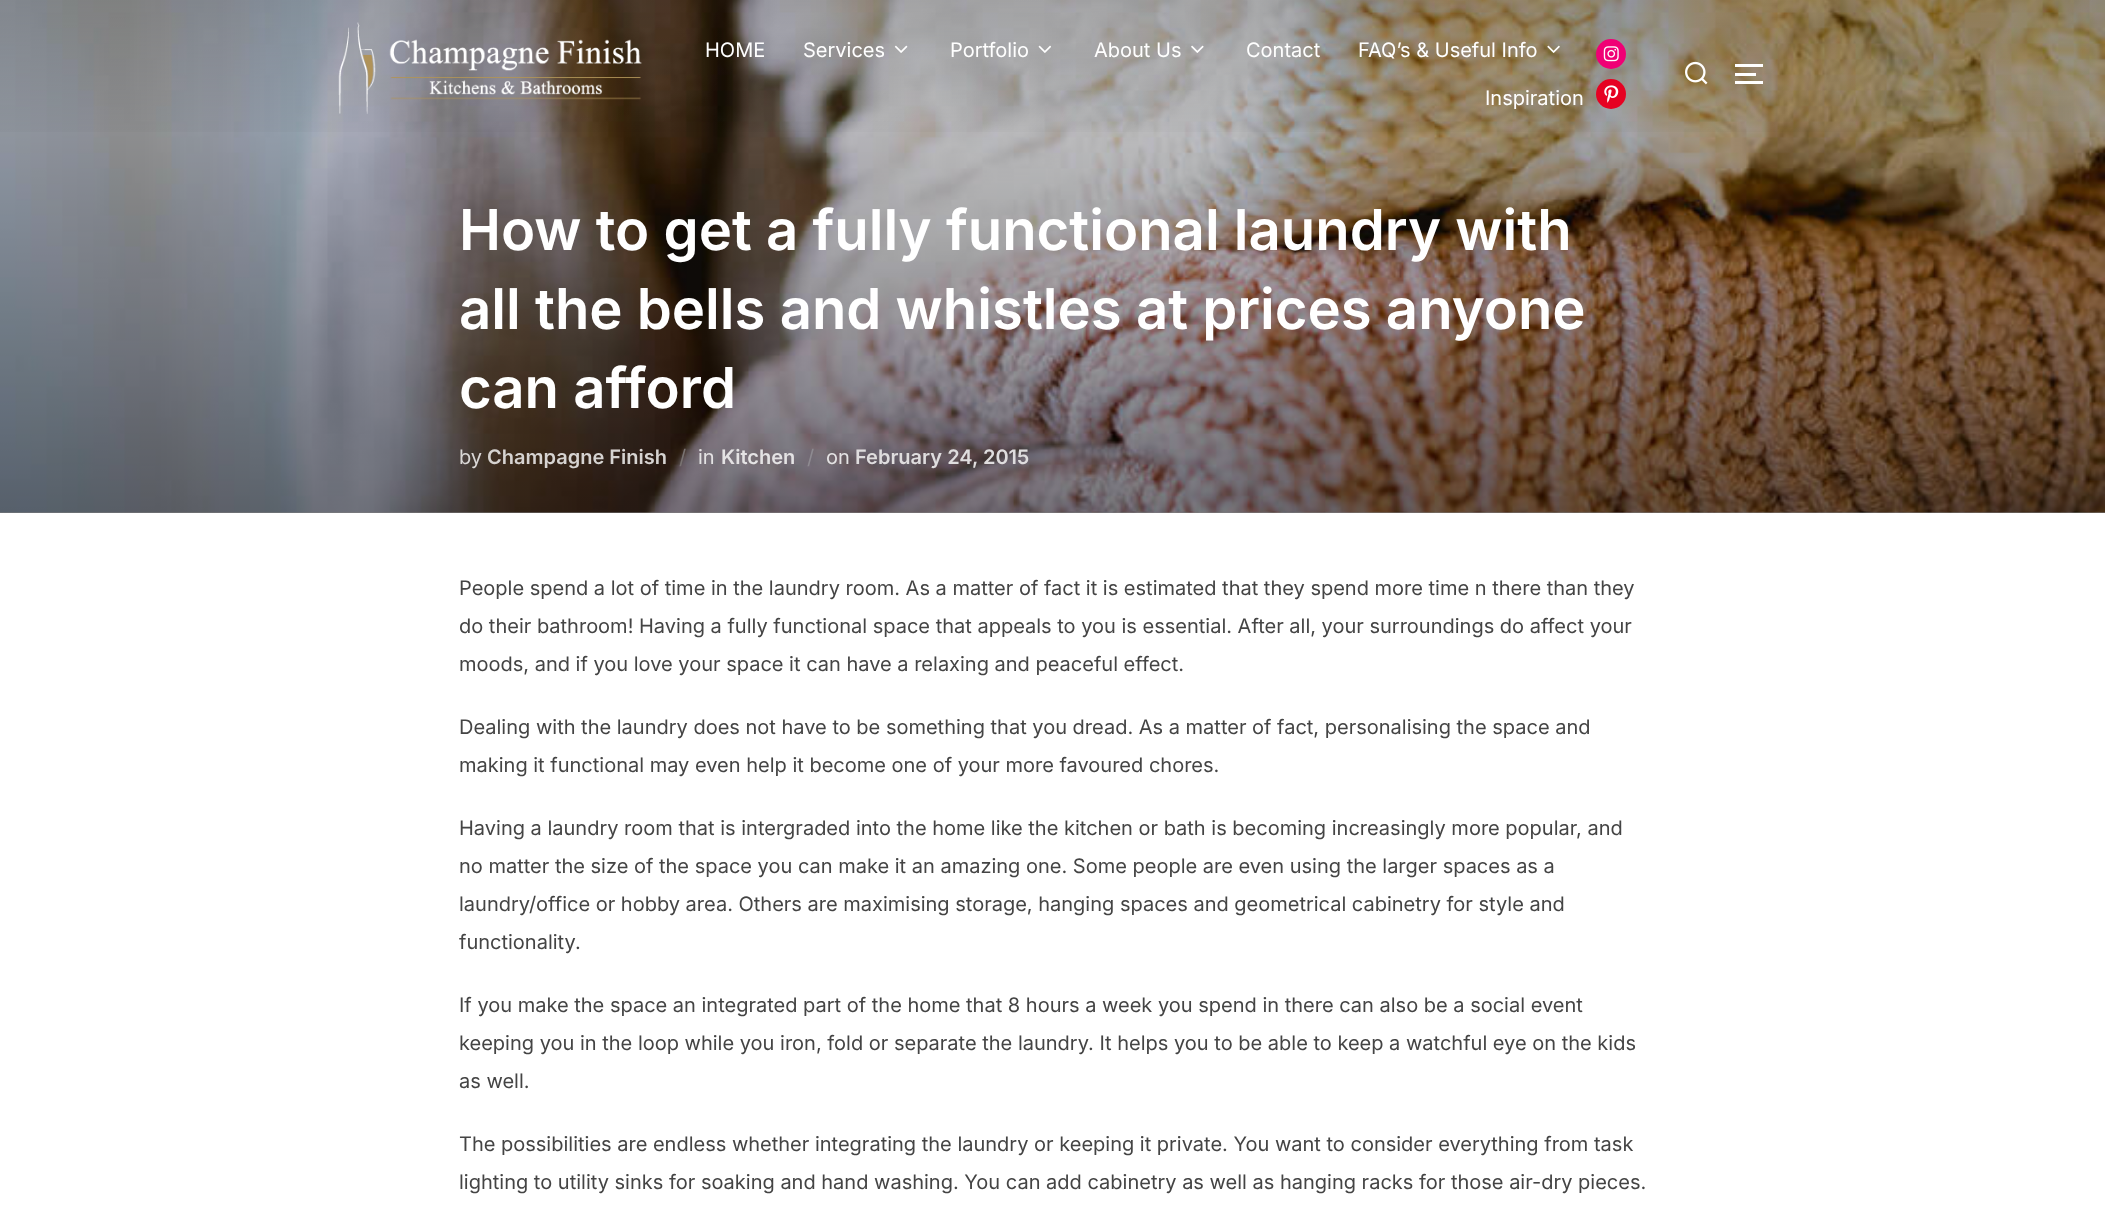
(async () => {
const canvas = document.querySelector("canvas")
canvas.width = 2105
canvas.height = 1218
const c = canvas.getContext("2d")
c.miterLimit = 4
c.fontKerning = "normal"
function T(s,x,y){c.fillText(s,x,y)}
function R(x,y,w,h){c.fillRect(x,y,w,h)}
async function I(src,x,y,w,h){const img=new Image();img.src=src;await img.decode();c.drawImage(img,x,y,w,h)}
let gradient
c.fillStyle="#fff"
R(0,0,2105,1218)
await I("9.png",0,0,2105,513)
gradient = c.createLinearGradient(1053,-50,1053,513)
gradient.addColorStop(0,"#0000001a")
gradient.addColorStop(1,"#00000080")
c.fillStyle = gradient
R(0,0,2105,513)
gradient = c.createLinearGradient(1053,0,1053,148)
gradient.addColorStop(.01,"#00000033")
gradient.addColorStop(1,"#00000000")
c.fillStyle = gradient
R(0,0,2105,132)
await I("1.png",338,22,304,92)
c.font="20px Inter"
c.fillStyle="#fff"
T("HOME",705,57)
T("Services",803,57)
await I("2.png",894,45,14,8)
T("Portfolio",950,57)
await I("3.png",1038,45,13,8)
T("About Us",1094,57)
await I("4.png",1191,45,13,8)
T("Contact",1246,57)
T("FAQ’s & Useful Info",1358,57)
await I("5.png",1547,45,13,8)
T("Inspiration",1485,105)
c.fillStyle="#f00075"
c.beginPath()
c.arc(1611,54,15,0,7)
c.fill()
await I("6.png",1603,46,16,16)
c.fillStyle="#e60122"
c.beginPath()
c.arc(1611,94,15,0,7)
c.fill()
await I("7.png",1604,85,15,18)
await I("8.png",1685,61,23,24)
c.fillStyle="#fff"
R(1735,64,28,3)
R(1735,73,21,3)
R(1735,81,28,3)
c.font="600 56.25px Inter"
T("How to get a fully functional laundry with",459,250)
T("all the bells and whistles at prices anyone",459,329)
T("can afford",459,408)
c.font="20px Inter"
c.fillStyle="#dad8d7"
T("by",459,464)
c.font="600 20px Inter"
c.fillStyle="#d6d3d1"
T("Champagne Finish",487,464)
c.font="20px Inter"
c.fillStyle="#797372"
T("/",679,464)
c.fillStyle="#e4e3e4"
T("in",698,464)
c.font="600 20px Inter"
T("Kitchen",721,464)
c.font="20px Inter"
c.fillStyle="#8e8b91"
T("/",807,464)
c.fillStyle="#e4e3e4"
T("on",826,464)
c.font="600 20px Inter"
c.fillStyle="#dfddde"
T("February 24, 2015",855,464)
c.font="20px Inter"
c.fillStyle="#444"
T("People spend a lot of time in the laundry room. As a matter of fact it is estimated that they spend more time n there than they",459,595)
T("do their bathroom! Having a fully functional space that appeals to you is essential. After all, your surroundings do affect your",459,633)
T("moods, and if you love your space it can have a relaxing and peaceful effect.",459,671)
T("Dealing with the laundry does not have to be something that you dread. As a matter of fact, personalising the space and",459,734)
T("making it functional may even help it become one of your more favoured chores.",459,772)
T("Having a laundry room that is intergraded into the home like the kitchen or bath is becoming increasingly more popular, and",459,835)
T("no matter the size of the space you can make it an amazing one. Some people are even using the larger spaces as a",459,873)
T("laundry/office or hobby area. Others are maximising storage, hanging spaces and geometrical cabinetry for style and",459,911)
T("functionality.",459,949)
T("If you make the space an integrated part of the home that 8 hours a week you spend in there can also be a social event",459,1012)
T("keeping you in the loop while you iron, fold or separate the laundry. It helps you to be able to keep a watchful eye on the kids",459,1050)
T("as well.",459,1088)
T("The possibilities are endless whether integrating the laundry or keeping it private. You want to consider everything from task",459,1151)
T("lighting to utility sinks for soaking and hand washing. You can add cabinetry as well as hanging racks for those air-dry pieces.",459,1189)
})()
